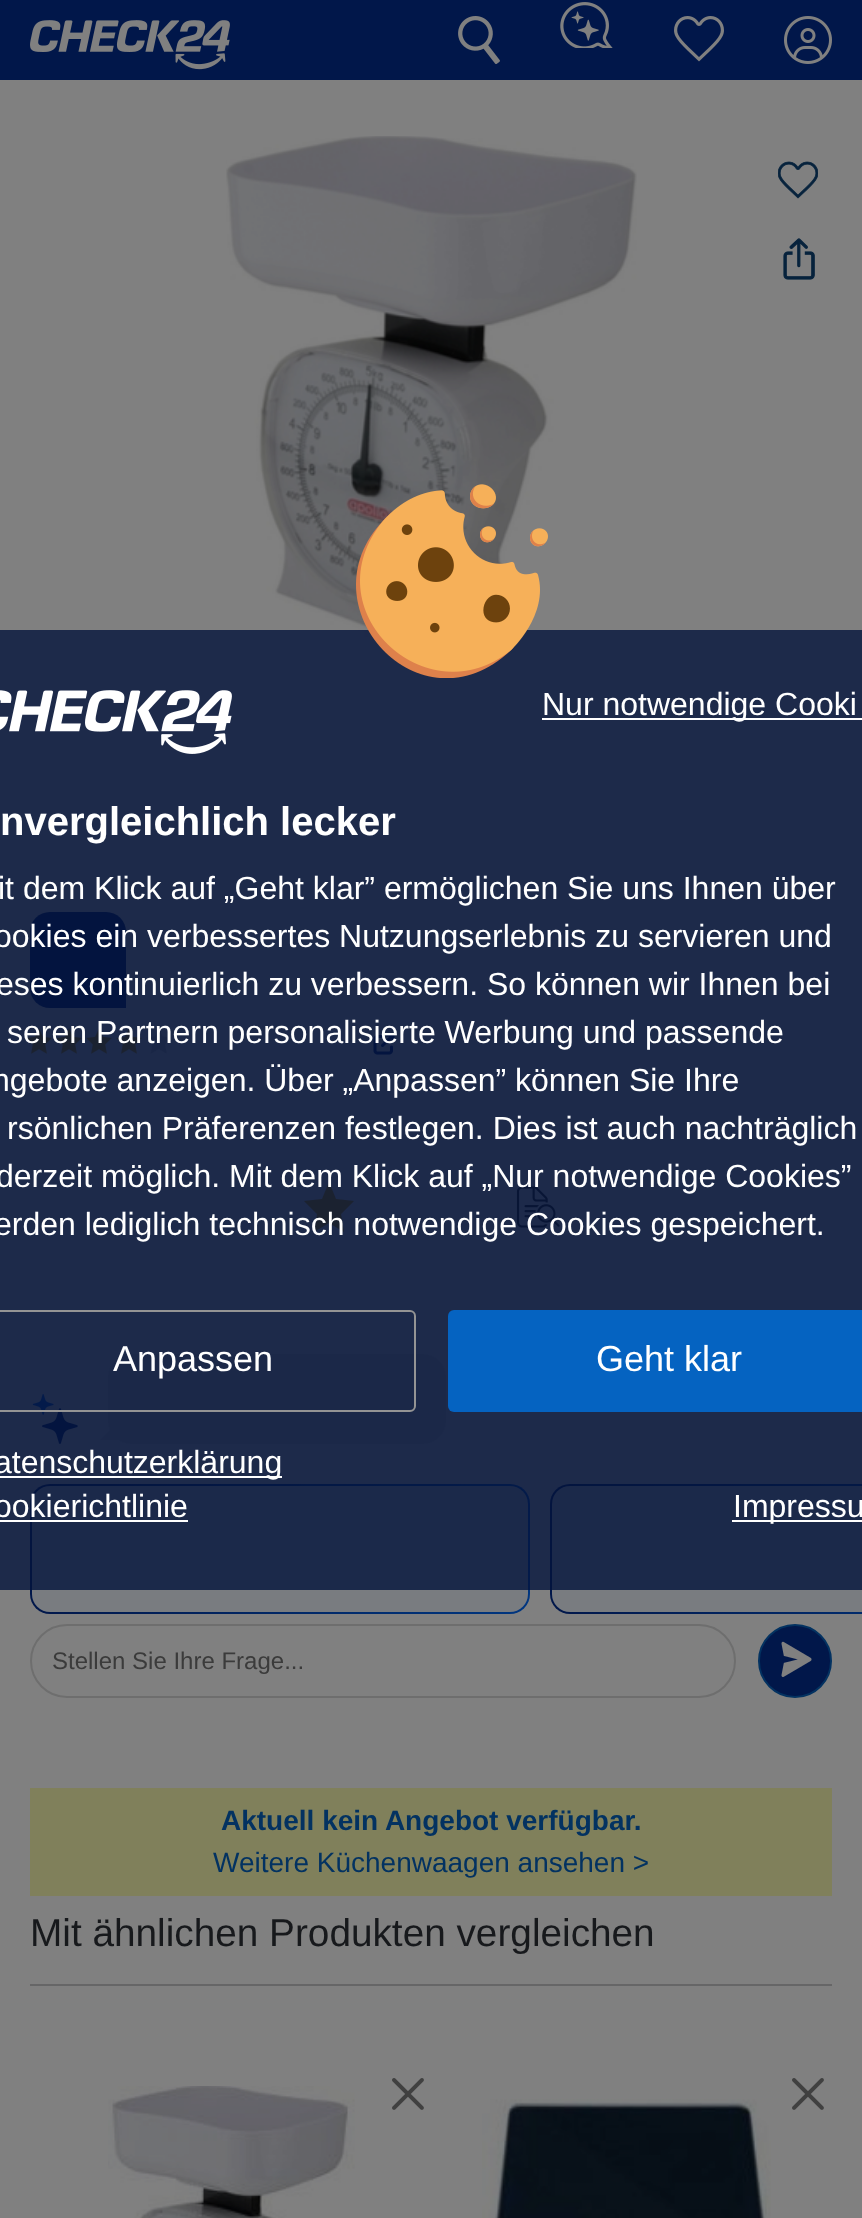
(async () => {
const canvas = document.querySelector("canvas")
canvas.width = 862
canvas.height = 2218
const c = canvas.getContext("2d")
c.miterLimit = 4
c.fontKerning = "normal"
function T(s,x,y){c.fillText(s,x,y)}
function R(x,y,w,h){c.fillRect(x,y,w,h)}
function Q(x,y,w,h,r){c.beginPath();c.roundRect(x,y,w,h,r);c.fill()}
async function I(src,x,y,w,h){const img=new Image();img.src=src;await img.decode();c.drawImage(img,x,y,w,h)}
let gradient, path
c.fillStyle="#808080"
R(0,0,862,2218)
await I("8.png",226,136,411,520)
c.fillStyle="#01174a"
c.beginPath()
c.roundRect(30,912,96,96,[20,20,0,20])
c.fill()
await I("9.png",26,1028,26,26)
await I("9.png",56,1028,26,26)
await I("9.png",86,1028,26,26)
await I("9.png",116,1028,26,26)
await I("10.png",146,1028,25,26)
await I("11.png",373,1033,22,22)
c.fillStyle="#7b5c00"
path = new Path2D("M329 1182l-7 17l-18 2l13 13l-3 18l15-9l15 9l-3-18l13-13l-18-2z")
c.fill(path)
await I("14.png",516,1186,44,42)
await I("15.png",32,1394,46,50)
c.fillStyle="#7a7a7a"
Q(108,1354,338,90,24)
path = new Path2D("M120 1440h-20l10-10z")
c.fill(path)
gradient = c.createLinearGradient(30,1549,530,1549)
gradient.addColorStop(0,"#01174a")
gradient.addColorStop(1,"#003680")
c.fillStyle = gradient
Q(30,1484,500,130,20)
c.fillStyle="#797c80"
Q(32,1486,496,126,18)
gradient = c.createLinearGradient(550,1549,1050,1549)
gradient.addColorStop(0,"#01174a")
gradient.addColorStop(1,"#003680")
c.fillStyle = gradient
c.beginPath()
c.roundRect(550,1484,312,130,[20,0,0,20])
c.fill()
c.fillStyle="#797c80"
c.beginPath()
c.roundRect(552,1486,310,126,[18,0,0,18])
c.fill()
c.fillStyle="#04143ccc"
R(0,630,862,960)
await I("1.png",356,484,192,194)
await I("2.png",0,690,232,64)
c.fillStyle="#fff"
R(542,718,320,2)
c.font="32px Liberation Sans"
T("Nur notwendige Cooki",542,715)
c.font="bold 40px Liberation Sans"
T("nvergleichlich lecker",0,835)
c.font="32px Liberation Sans"
T("it dem Klick auf „Geht klar” ermöglichen Sie uns Ihnen über",-2,899)
T("ookies ein verbessertes Nutzungserlebnis zu servieren und",-6,947)
T("eses kontinuierlich zu verbessern. So können wir Ihnen bei",-4,995)
T("seren Partnern personalisierte Werbung und passende",7,1043)
T("ngebote anzeigen. Über „Anpassen” können Sie Ihre",-8,1091)
T("rsönlichen Präferenzen festlegen. Dies ist auch nachträglich",7,1139)
T("derzeit möglich. Mit dem Klick auf „Nur notwendige Cookies”",-4,1187)
T("erden lediglich technisch notwendige Cookies gespeichert.",-6,1235)
c.beginPath()
c.roundRect(-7,1311,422,100,5)
c.strokeStyle="#949494"
c.lineWidth=2
c.stroke()
c.font="36px Liberation Sans"
T("Anpassen",113,1371)
c.fillStyle="#0563c1"
Q(448,1310,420,102,6)
c.fillStyle="#fff"
T("Geht klar",596,1371)
R(0,1476,282,2)
c.font="32px Liberation Sans"
T("atenschutzerklärung",-6,1473)
T("ookierichtlinie",-6,1517)
R(0,1520,188,2)
R(732,1520,130,2)
T("Impressu",733,1517)
c.fillStyle="#01174a"
R(0,0,862,80)
await I("3.png",30,20,200,50)
await I("4.png",458,16,42,48)
await I("5.png",560,2,53,46)
await I("6.png",674,16,50,46)
await I("7.png",784,16,48,48)
await I("12.png",778,161,40,38)
await I("13.png",783,238,32,42)
c.beginPath()
c.roundRect(31,1625,704,72,36)
c.strokeStyle="#6e6e6e"
c.stroke()
c.font="24px Liberation Sans"
c.fillStyle="#3b3b3b"
T("Stellen Sie Ihre Frage...",52,1669)
c.fillStyle="#01174a"
c.beginPath()
c.arc(795,1661,36,0,7)
c.fill()
c.strokeStyle="#033261"
c.stroke()
await I("16.png",781,1641,31,37)
c.fillStyle="#80805b"
R(30,1788,802,108)
c.font="bold 28px Liberation Sans"
c.fillStyle="#033261"
T("Aktuell kein Angebot verfügbar.",221,1830)
c.font="28px Liberation Sans"
T("Weitere Küchenwaagen ansehen >",213,1872)
c.font="38.75px Liberation Sans"
c.fillStyle="#17191c"
T("Mit ähnlichen Produkten vergleichen",30,1946)
c.fillStyle="#666667"
R(30,1984,802,2)
await I("17.png",108,2086,247,132)
await I("18.png",392,2078,32,32)
await I("18.png",792,2078,32,32)
await I("19.png",482,2099,289,119)
})()
